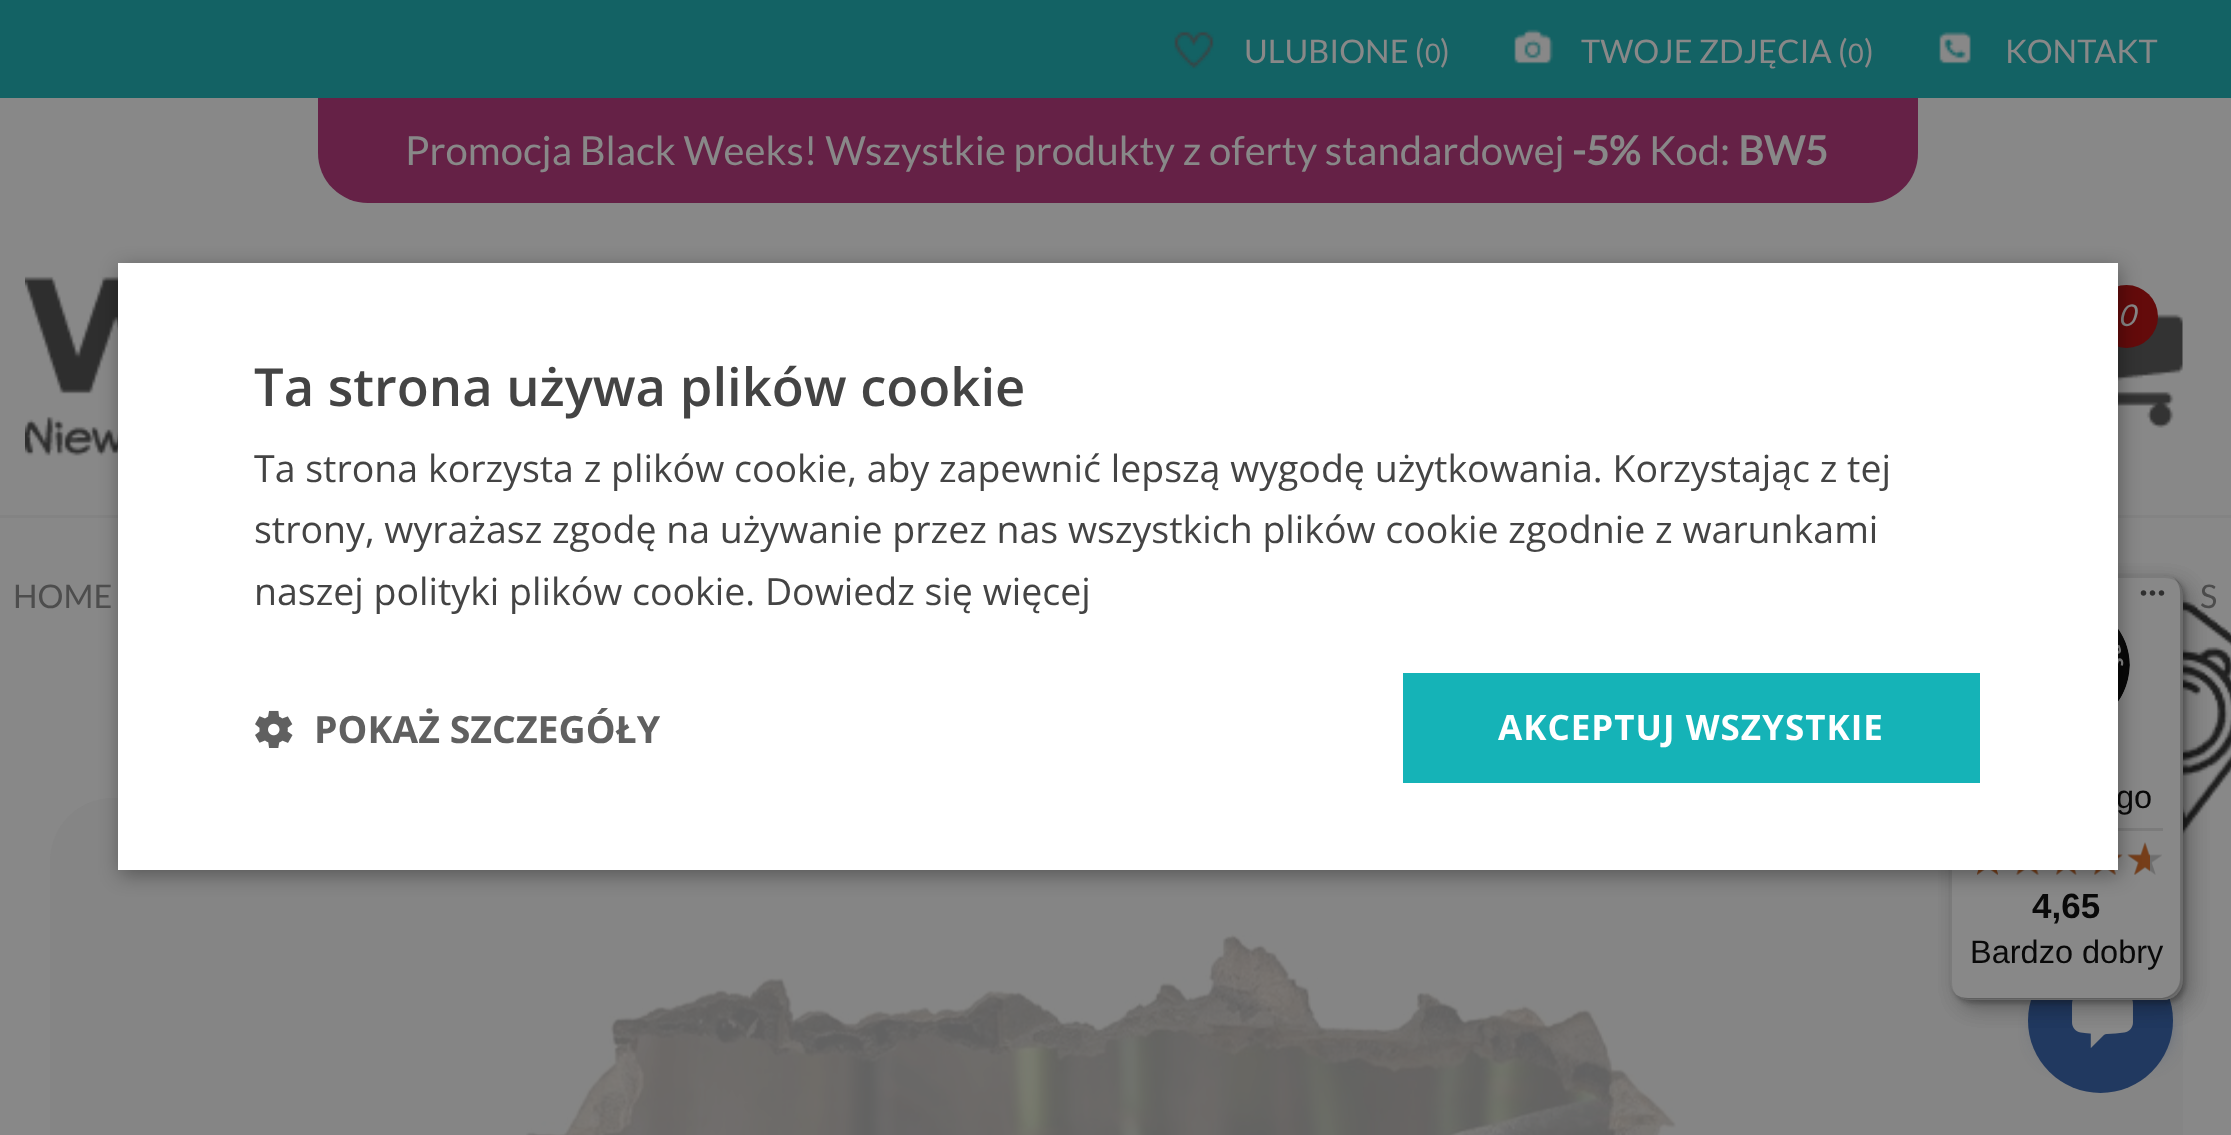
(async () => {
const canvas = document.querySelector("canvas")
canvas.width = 2231
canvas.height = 1135
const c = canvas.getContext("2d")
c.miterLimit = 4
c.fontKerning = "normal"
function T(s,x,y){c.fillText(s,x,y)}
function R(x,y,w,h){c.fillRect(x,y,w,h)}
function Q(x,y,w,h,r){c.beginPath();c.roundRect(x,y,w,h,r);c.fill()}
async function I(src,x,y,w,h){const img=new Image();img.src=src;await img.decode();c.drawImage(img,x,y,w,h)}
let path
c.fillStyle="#888"
R(0,0,2231,1135)
c.fillStyle="#136264"
R(0,0,2231,98)
await I("1.png",1174,31,40,38)
c.font="32.5px Lato"
c.fillStyle="#888"
T("ULUBIONE (",1244,63)
c.font="27px Lato"
T("0",1425,63)
c.font="32.5px Lato"
T(")",1440,63)
await I("2.png",1514,29,40,35)
T("TWOJE ZDJĘCIA (",1581,63)
c.font="27px Lato"
T("0",1848,63)
c.font="32.5px Lato"
T(")",1864,63)
await I("3.png",1939,31,32,33)
T("KONTAKT",2005,63)
c.fillStyle="#652146"
c.beginPath()
c.roundRect(318,98,1600,105,[0,0,50,50])
c.fill()
c.font="40px Lato"
c.fillStyle="#888"
T("Promocja Black Weeks! Wszystkie produkty z oferty standardowej",405,165)
c.font="bold 40px Lato"
T("-5%",1572,165)
c.font="40px Lato"
T("Kod:",1649,165)
c.font="bold 40px Lato"
T("BW5",1738,165)
c.fillStyle="#838383"
R(0,515,2231,3)
await I("4.png",25,276,93,180)
await I("5.png",2118,314,65,114)
c.fillStyle="#640b0b"
c.beginPath()
c.arc(2126.5,316.5,31.5,0,7)
c.fill()
c.font="italic 30px Lato"
c.fillStyle="#888"
T("0",2118,326)
c.font="32.5px Lato"
c.fillStyle="#4d4d4d"
T("S",2200,608)
await I("6.png",2183,600,48,236)
c.fillStyle="#858585"
Q(50,798,2133,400,63)
c.fillStyle="#253e69"
c.filter="blur(11px)"
c.beginPath()
c.roundRect(2043,1003,120,52,26)
c.fill()
c.filter="none"
c.fillStyle="#213960"
c.beginPath()
c.arc(2100.5,1020.5,72.5,0,7)
c.fill()
await I("21.png",2072,1000,61,48)
c.fillStyle="#09090926"
c.filter="blur(10px)"
c.beginPath()
c.roundRect(1958,583,232,425,20)
c.fill()
c.filter="none"
c.filter="blur(2.5px)"
c.beginPath()
c.roundRect(1953,578,232,425,20)
c.fill()
c.filter="none"
c.fillStyle="#22222233"
path = new Path2D("M1956 994c4 4 9 6 14 6h193c11 0 20-9 20-20v-385c0-8-4-14-10-18c5 4 8 10 8 17v384c0 12-9 20-20 20h-193c-5 0-9-1-12-4z")
c.fill(path)
c.fillStyle="#09090926"
c.filter="blur(10px)"
c.beginPath()
c.roundRect(1958,583,232,425,20)
c.fill()
c.filter="none"
c.filter="blur(2.5px)"
c.beginPath()
c.roundRect(1953,578,232,425,20)
c.fill()
c.filter="none"
c.fillStyle="#888"
Q(1950,575,233,425,20)
c.fillStyle="#0909091a"
path = new Path2D("M1972 578h193c6 0 11 2 15 6c-4-5-10-9-17-9h-193c-11 0-20 9-20 20v385c0 5 2 10 6 14c-3-3-4-7-4-12v-384c0-12 9-20 20-20z")
c.fill(path)
c.fillStyle="#09090933"
path = new Path2D("M1956 994c4 4 9 6 14 6h193c11 0 20-9 20-20v-385c0-6-3-12-8-16c3 4 5 8 5 13v386c0 11-9 20-20 20h-192c-5 0-9-1-12-4z")
c.fill(path)
c.fillStyle="#22222233"
path = new Path2D("M1956 994c4 4 9 6 14 6h193c11 0 20-9 20-20v-385c0-8-4-14-10-18c5 4 8 10 8 17v384c0 12-9 20-20 20h-193c-5 0-9-1-12-4z")
c.fill(path)
c.fillStyle="#8888884d"
path = new Path2D("M1955 993c4 4 9 7 15 7h193c11 0 20-9 20-20v-385c0-8-5-15-12-18c6 3 10 10 10 17v385c0 11-9 20-20 20h-192c-5 0-10-2-14-6z")
c.fill(path)
await I("9.png",2140,590,25,6)
await I("10.png",2118,629,12,73)
c.fillStyle="#7b7b7b"
R(2118,828,45,3)
await I("11.png",1977,870,21,5)
await I("12.png",2016,870,23,5)
await I("13.png",2056,870,20,5)
await I("14.png",2094,854,28,21)
await I("15.png",2128,842,34,33)
await I("16.png",1977,870,21,5)
await I("17.png",2016,870,23,5)
await I("18.png",2056,870,21,5)
await I("19.png",2094,854,29,21)
await I("20.png",2127,842,23,33)
c.fillStyle="#00000059"
c.filter="blur(10px)"
c.beginPath()
c.rect(120,268,2000,607)
c.fill()
c.filter="none"
c.font="32.5px Liberation Sans"
c.fillStyle="#090909"
T("go",2116,808)
c.fillStyle="#fff"
R(118,263,2000,607)
c.font="600 52.5px Open Sans"
c.fillStyle="#444"
T("Ta strona używa plików cookie",254,406)
c.font="37.5px Open Sans"
T("Ta strona korzysta z plików cookie, aby zapewnić lepszą wygodę użytkowania. Korzystając z tej",254,482)
T("strony, wyrażasz zgodę na używanie przez nas wszystkich plików cookie zgodnie z warunkami",254,543)
T("naszej polityki plików cookie. Dowiedz się więcej",254,605)
await I("7.png",255,710,38,38)
c.font="bold 37.5px Open Sans"
c.fillStyle="#606060"
T("POKAŻ SZCZEGÓŁY",314,743)
c.fillStyle="#15b3b7"
R(1403,673,577,110)
c.letterSpacing="1px"
c.font="bold 35px Open Sans"
c.fillStyle="#fff"
T("AKCEPTUJ WSZYSTKIE",1498,740)
c.letterSpacing="0px"
c.font="32.5px Lato"
c.fillStyle="#4d4d4d"
T("HOME",13,608)
await I("8.png",526,934,1150,201)
c.font="bold 35px Liberation Sans"
c.fillStyle="#090909"
T("4,65",2032,918)
c.font="32.5px Liberation Sans"
T("Bardzo dobry",1970,963)
})()
